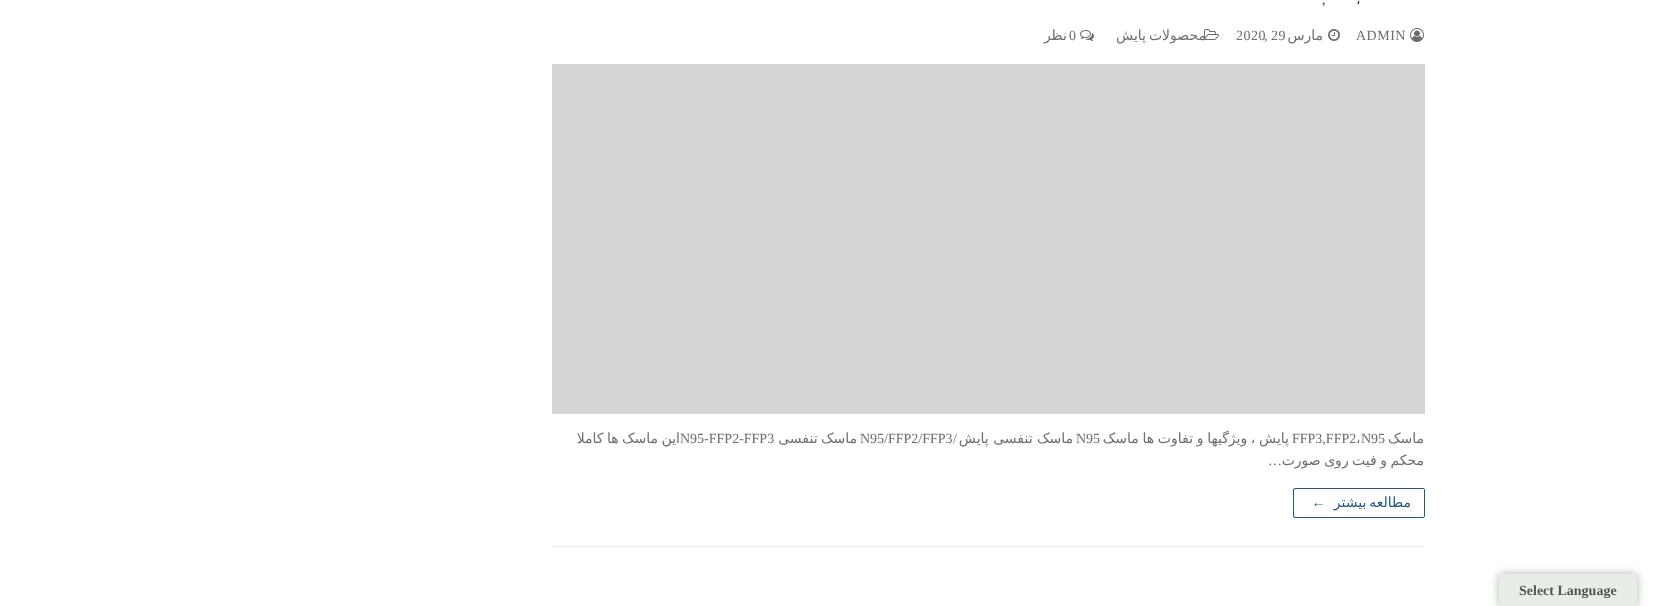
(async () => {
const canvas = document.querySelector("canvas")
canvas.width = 1657
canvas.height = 606
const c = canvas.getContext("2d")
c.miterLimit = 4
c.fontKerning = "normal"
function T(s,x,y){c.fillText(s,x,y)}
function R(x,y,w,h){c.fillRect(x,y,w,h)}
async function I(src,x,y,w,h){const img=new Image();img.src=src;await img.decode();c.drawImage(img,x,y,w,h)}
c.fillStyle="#fff"
R(0,0,1657,606)
c.fillStyle="#eaecee"
R(552,546,873,1)
c.font="14px DejaVu Sans"
c.fillStyle="#2b2b2b"
T("،",1356,4)
c.font="14px Liberation Serif"
T(",",1322,4)
await I("1.png",1410,28,14,14)
c.letterSpacing="0.5px"
c.fillStyle="#6d6d6d"
T("ADMIN",1356,40)
await I("2.png",1328,29,12,12)
c.direction="rtl"
c.font="14px DejaVu Sans"
T("مارس",1323,40)
c.direction="ltr"
c.font="14px Liberation Serif"
T("29",1271,40)
T("2020",1236,40)
T(",",1264,40)
await I("3.png",1204,29,15,11)
c.wordSpacing="-2px"
c.direction="rtl"
c.font="14px DejaVu Sans"
T("محصولات پایش",1206,40)
await I("4.png",1080,30,14,11)
c.wordSpacing="0px"
c.direction="ltr"
c.font="14px Liberation Serif"
T("0",1069,40)
c.direction="rtl"
c.font="14px DejaVu Sans"
T("نظر",1067,40)
c.fillStyle="#d5d5d5"
R(552,64,873,350)
c.letterSpacing="0px"
c.fillStyle="#6d6d6d"
T("ماسک",1424,443)
c.direction="ltr"
c.font="14px Liberation Serif"
T("N95",1361,443)
c.font="14px DejaVu Sans"
T("،",1356,443)
c.font="14px Liberation Serif"
T("FFP3,FFP2",1292,443)
c.wordSpacing="-0.75px"
c.direction="rtl"
c.font="14px DejaVu Sans"
T("پایش ، ویژگیها و تفاوت ها ماسک",1289,443)
c.wordSpacing="0px"
c.direction="ltr"
c.font="14px Liberation Serif"
T("N95",1076,443)
c.direction="rtl"
c.font="14px DejaVu Sans"
T("ماسک تنفسی پایش",1073,443)
c.direction="ltr"
c.font="14px Liberation Serif"
T("N95/FFP2/FFP3",860,443)
c.direction="rtl"
T("/",957,443)
c.wordSpacing="-1px"
c.font="14px DejaVu Sans"
T("ماسک تنفسی",857,443)
c.wordSpacing="0px"
c.direction="ltr"
c.font="14px Liberation Serif"
T("N95-FFP2-FFP3",680,443)
c.wordSpacing="-1px"
c.direction="rtl"
c.font="14px DejaVu Sans"
T("این ماسک ها کاملا",680,443)
T("محکم و فیت روی صورت",1424,465)
c.wordSpacing="0px"
c.font="14px Liberation Serif"
T("…",1282,465)
c.beginPath()
c.roundRect(1293.5,488.5,131,29,1.5)
c.strokeStyle="#235787"
c.stroke()
c.letterSpacing="0.5px"
c.wordSpacing="-2px"
c.font="14px DejaVu Sans"
c.fillStyle="#235787"
T("مطالعه بیشتر",1411,507)
c.wordSpacing="0px"
c.font="14px Liberation Serif"
T("←",1326,507)
c.fillStyle="#0000004d"
c.filter="blur(4.5px)"
c.beginPath()
c.rect(1499,574,138,32)
c.fill()
c.filter="none"
c.fillStyle="#e9ede8"
R(1499,574,138,32)
c.letterSpacing="0px"
c.direction="ltr"
c.font="bold 14px Liberation Serif"
c.fillStyle="#545454"
T("Select Language",1519,595)
})()
